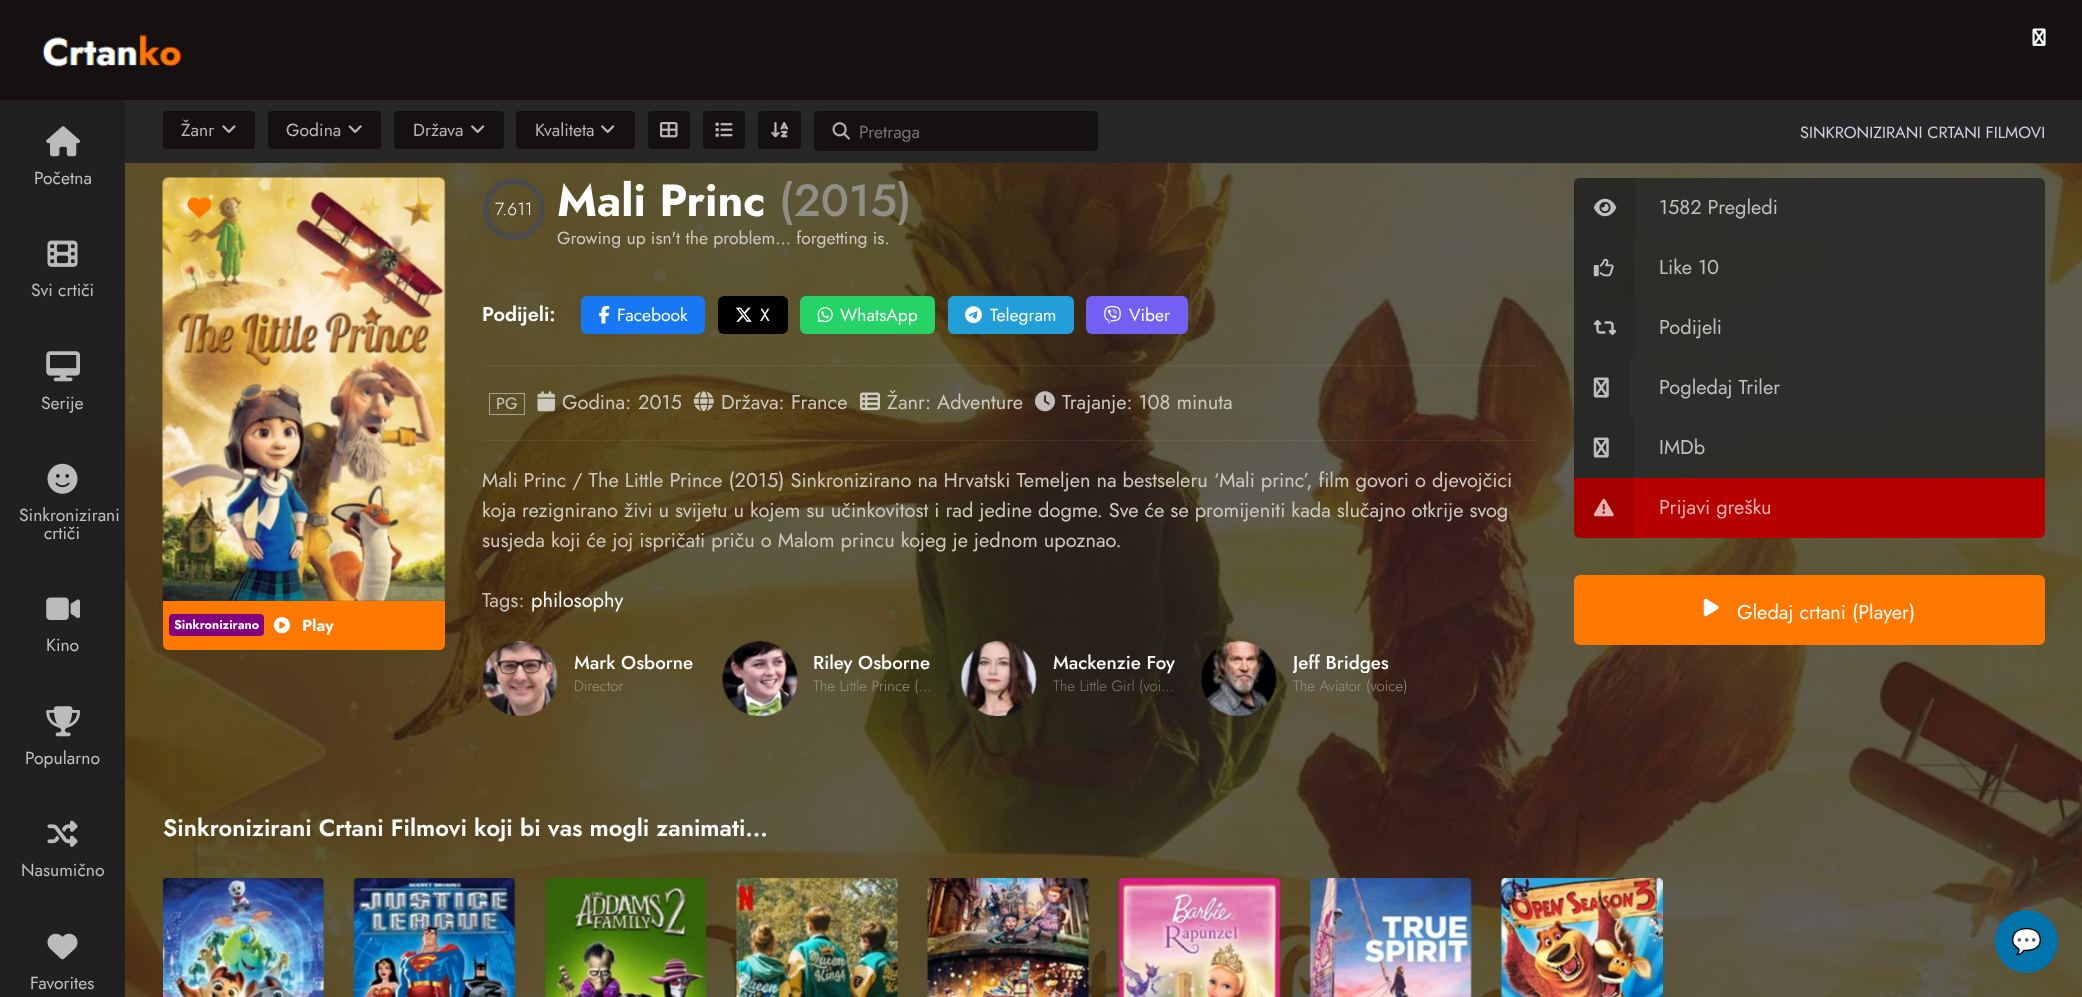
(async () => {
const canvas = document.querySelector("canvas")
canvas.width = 2082
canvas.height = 997
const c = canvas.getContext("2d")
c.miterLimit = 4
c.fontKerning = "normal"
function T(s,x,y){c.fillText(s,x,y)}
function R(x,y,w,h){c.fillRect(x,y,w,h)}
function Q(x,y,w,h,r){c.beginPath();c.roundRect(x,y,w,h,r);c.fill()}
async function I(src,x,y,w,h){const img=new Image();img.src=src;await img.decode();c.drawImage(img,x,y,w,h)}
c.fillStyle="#191717"
R(0,0,2082,997)
c.fillStyle="#212020"
R(0,100,125,897)
await I("1.png",46,126,34,31)
c.font="17.5px Jost"
c.fillStyle="#c0c0bf"
T("Početna",34,184)
await I("2.png",47,240,31,27)
T("Svi crtiči",31,296)
await I("3.png",46,351,34,31)
T("Serije",41,409)
await I("4.png",47,463,31,31)
T("Sinkronizirani",19,521)
T("crtiči",44,539)
await I("5.png",46,597,34,23)
T("Kino",46,651)
await I("6.png",46,706,34,31)
T("Popularno",25,764)
await I("7.png",47,820,31,27)
T("Nasumično",21,876)
await I("8.png",47,933,31,27)
T("Favorites",30,989)
c.fillStyle="#151111"
R(0,0,2082,100)
await I("9.png",42,34,140,33)
await I("10.png",2032,28,14,18)
c.fillStyle="#272727"
R(125,100,1957,63)
c.fillStyle="#151111"
Q(163,111,92,38,4)
c.fillStyle="#b9b8b8"
T("Žanr",181,136)
await I("11.png",222,125,14,8)
c.fillStyle="#151111"
Q(268,111,113,38,4)
c.fillStyle="#b9b8b8"
T("Godina",286,136)
await I("12.png",348,125,14,8)
c.fillStyle="#151111"
Q(394,111,110,38,4)
c.fillStyle="#b9b8b8"
T("Država",413,136)
await I("13.png",471,125,14,8)
c.fillStyle="#151111"
Q(516,111,119,38,4)
c.fillStyle="#b9b8b8"
T("Kvaliteta",535,136)
await I("13.png",601,125,14,8)
c.fillStyle="#151111"
Q(648,111,42,38,4)
await I("14.png",660,122,18,16)
Q(703,111,42,38,4)
await I("15.png",715,122,18,15)
Q(758,111,43,38,4)
await I("16.png",771,122,17,16)
Q(814,111,284,40,4)
await I("17.png",832,122,18,18)
c.fillStyle="#757575"
T("Pretraga",859,138)
c.font="16.25px Jost"
c.fillStyle="#cfd3e0"
T("SINKRONIZIRANI CRTANI FILMOVI",1800,138)
await I("18.png",125,163,1957,834)
c.beginPath()
c.arc(514,209,28,0,7)
c.strokeStyle="#4c4b4b"
c.lineWidth=6
c.stroke()
c.font="300 17.5px Jost"
c.fillStyle="#fff"
T("7.611",495,215)
c.font="bold 45px Jost"
T("Mali Princ",557,216)
c.font="500 45px Jost"
c.fillStyle="#908f87"
T("(2015)",779,216)
c.font="17.5px Jost"
c.fillStyle="#cecabf"
T("Growing up isn't the problem... forgetting is.",557,244)
c.fillStyle="#ffffff12"
R(483,440,1053,1)
c.font="600 20px Jost"
c.fillStyle="#fff"
T("Podijeli:",482,321)
c.fillStyle="#1877f2"
Q(581,296,124,38,6)
await I("19.png",599,305,11,19)
c.font="17.5px Jost"
c.fillStyle="#fff"
T("Facebook",617,321)
c.fillStyle="#000"
Q(718,296,70,38,6)
await I("20.png",736,307,16,15)
c.fillStyle="#fff"
T("X",760,321)
c.fillStyle="#25d366"
Q(800,296,135,38,6)
await I("21.png",817,307,16,16)
c.fillStyle="#fff"
T("WhatsApp",840,321)
c.fillStyle="#229ed9"
Q(948,296,126,38,6)
await I("22.png",965,306,17,18)
c.fillStyle="#fff"
T("Telegram",990,321)
c.fillStyle="#7360f2"
Q(1086,296,102,38,6)
await I("23.png",1104,305,17,19)
c.fillStyle="#fff"
T("Viber",1129,321)
c.fillStyle="#ffffff12"
R(483,365,1053,1)
c.strokeStyle="#f3f9ff80"
c.lineWidth=1
c.strokeRect(489.5,393.5,35,21)
c.font="16.25px Jost"
c.fillStyle="#cecabf"
T("PG",496,409)
await I("24.png",537,391,18,21)
c.font="20px Jost"
T("Godina:",562,409)
T("2015",638,409)
await I("25.png",693,391,21,21)
T("Država:",721,409)
T("France",791,409)
await I("26.png",860,392,20,18)
T("Žanr:",887,409)
T("Adventure",937,409)
await I("27.png",1035,391,20,21)
T("Trajanje: 108 minuta",1062,409)
T("Mali Princ / The Little Prince (2015) Sinkronizirano na Hrvatski Temeljen na bestseleru ‘Mali princ’, film govori o djevojčici",482,487)
T("koja rezignirano živi u svijetu u kojem su učinkovitost i rad jedine dogme. Sve će se promijeniti kada slučajno otkrije svog",482,517)
T("susjeda koji će joj ispričati priču o Malom princu kojeg je jednom upoznao.",482,547)
c.fillStyle="#cac2ba"
T("Tags:",482,607)
c.fillStyle="#fff"
T("philosophy",531,607)
await I("28.png",483,641,75,75)
c.font="500 18.75px Jost"
T("Mark Osborne",574,669)
c.font="300 15px Jost"
c.fillStyle="#9d957f"
T("Director",574,691)
await I("29.png",722,641,76,75)
c.font="500 18.75px Jost"
c.fillStyle="#fff"
T("Riley Osborne",813,669)
c.font="300 15px Jost"
c.fillStyle="#95917f"
T("The Little Prince (…",813,691)
await I("30.png",960,641,77,75)
c.font="500 18.75px Jost"
c.fillStyle="#fff"
T("Mackenzie Foy",1053,669)
c.font="300 15px Jost"
c.fillStyle="#7f7a74"
T("The Little Girl (voi…",1053,691)
await I("31.png",1201,641,76,75)
c.save()
c.beginPath()
c.rect(1293,654,123,19)
c.clip()
c.font="500 18.75px Jost"
c.fillStyle="#fff"
T("Jeff Bridges",1293,669)
c.restore()
c.fillStyle="#95917f"
T("The Aviator (voice)",1293,691)
c.fillStyle="#272727e0"
c.beginPath()
c.roundRect(1574,178,471,60,[6,6,0,0])
c.fill()
c.fillStyle="#0000001a"
R(1574,178,62,60)
await I("32.png",1593,198,24,19)
c.font="20px Jost"
c.fillStyle="#c0c0bf"
T("1582 Pregledi",1659,214)
c.fillStyle="#272727e0"
R(1574,238,471,60)
c.fillStyle="#0000001a"
R(1574,238,60,60)
await I("33.png",1593,258,21,19)
c.fillStyle="#c0c0bf"
T("Like 10",1659,274)
c.fillStyle="#272727e0"
R(1635,298,410,60)
c.fillStyle="#292927"
R(1574,298,61,60)
await I("34.png",1593,320,24,15)
c.fillStyle="#c0c0bf"
T("Podijeli",1659,334)
c.fillStyle="#272727e0"
R(1574,358,471,60)
c.fillStyle="#0000001a"
R(1574,358,55,60)
await I("35.png",1593,377,16,21)
c.fillStyle="#c0c0bf"
T("Pogledaj Triler",1659,394)
c.fillStyle="#272727e0"
R(1574,418,471,60)
c.fillStyle="#0000001a"
R(1574,418,60,60)
await I("36.png",1593,437,16,21)
c.fillStyle="#c0c0bf"
T("IMDb",1659,454)
c.fillStyle="#b70000"
c.beginPath()
c.roundRect(1574,478,471,60,[0,0,6,6])
c.fill()
c.fillStyle="#0000001a"
R(1574,478,60,60)
await I("37.png",1593,498,21,19)
c.fillStyle="#e9b3b3"
T("Prijavi grešku",1659,514)
c.fillStyle="#ff7800"
Q(1574,575,471,70,6)
await I("38.png",1703,598,16,19)
c.fillStyle="#fff"
T("Gledaj crtani (Player)",1737,619)
await I("39.png",162,177,284,425)
await I("40.png",187,197,25,21)
c.fillStyle="#ff7800"
c.beginPath()
c.roundRect(163,601,282,49,[0,0,6,6])
c.fill()
await I("41.png",273,617,17,17)
c.beginPath()
c.roundRect(167,605,274,41,[0,0,2,2])
c.strokeStyle="#ff7800"
c.lineWidth=8
c.stroke()
c.fillStyle="#800080"
Q(169,614,95,22,4)
c.font="bold 12.5px Jost"
c.fillStyle="#fff"
T("Sinkronizirano",174,629)
c.font="bold 16.25px Jost"
T("Play",302,631)
c.font="600 23.75px Jost"
T("Sinkronizirani Crtani Filmovi koji bi vas mogli zanimati...",163,836)
await I("42.png",163,878,162,119)
await I("43.png",353,878,163,119)
await I("44.png",544,878,163,119)
await I("45.png",735,878,163,119)
await I("46.png",927,878,163,119)
await I("47.png",1118,878,163,119)
await I("48.png",1309,878,163,119)
await I("49.png",1500,878,163,119)
c.fillStyle="#0073aa"
c.beginPath()
c.arc(2026.5,941.5,31.5,0,7)
c.fill()
c.font="25px Noto Color Emoji"
c.fillStyle="#fff"
T("💬",2011,950)
})()
